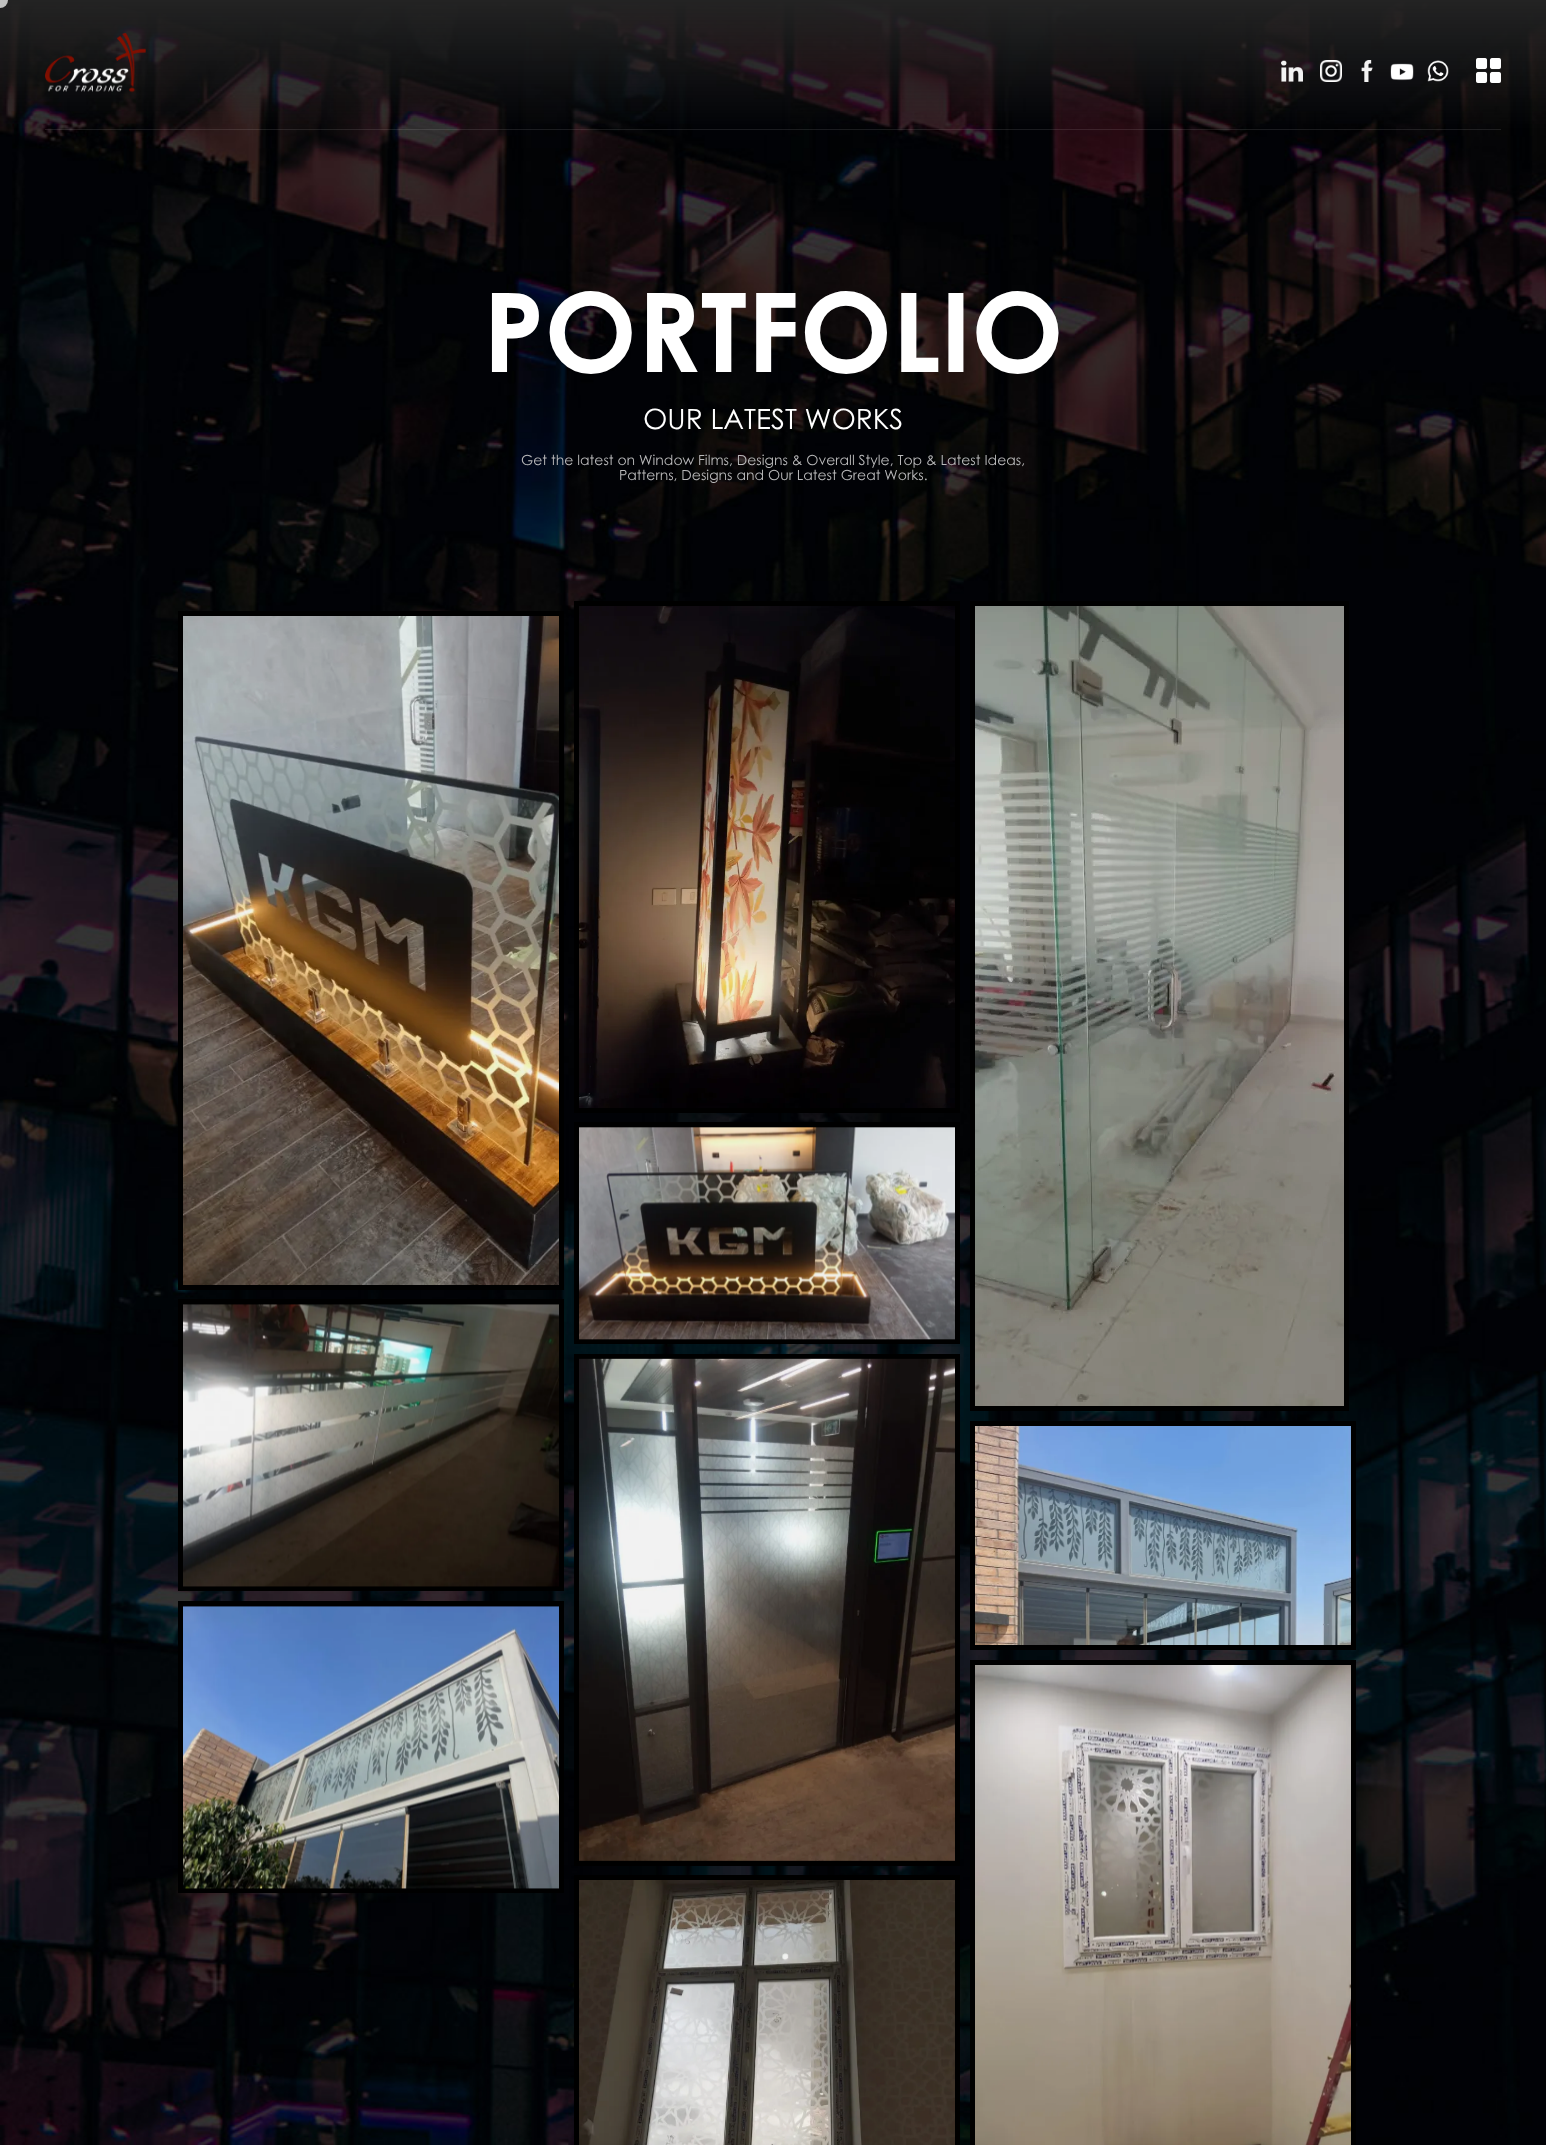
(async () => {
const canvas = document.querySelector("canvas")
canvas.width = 1546
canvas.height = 2145
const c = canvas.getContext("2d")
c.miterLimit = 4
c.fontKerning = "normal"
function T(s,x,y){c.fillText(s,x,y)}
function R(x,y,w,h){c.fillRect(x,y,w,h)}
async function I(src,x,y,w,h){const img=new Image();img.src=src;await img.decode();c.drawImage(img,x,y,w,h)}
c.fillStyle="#fff"
R(0,0,1546,2145)
await I("1.png",0,0,1546,2145)
c.fillStyle="#c1c1c1"
c.beginPath()
c.arc(0,0,8,0,7)
c.fill()
await I("2.png",45,33,101,60)
await I("3.png",1281,60,22,22)
await I("4.png",1320,60,22,22)
await I("5.png",1361,60,12,22)
await I("6.png",1390,63,24,18)
await I("7.png",1427,60,22,22)
await I("8.png",1476,58,25,25)
c.fillStyle="#ffffff1a"
R(45,129,1456,1)
c.font="bold 110px Century Gothic"
c.fillStyle="#fff"
T("PORTFOLIO",483,372)
c.font="28px Century Gothic"
T("OUR LATEST WORKS",643,429)
c.font="14px Century Gothic"
c.fillStyle="#b9b9ba"
T("Get the latest on Window Films, Designs & Overall Style, Top & Latest Ideas,",521,465)
T("Patterns, Designs and Our Latest Great Works.",619,480)
c.fillStyle="#000"
R(574,601,386,512)
await I("9.png",579,606,376,502)
R(970,601,379,810)
await I("10.png",975,606,369,800)
R(178,611,386,679)
await I("11.png",183,616,376,669)
c.letterSpacing="1px"
c.font="12px Century Gothic"
c.fillStyle="#3d3b39"
T("..",530,1265)
c.fillStyle="#000"
R(574,1122,386,222)
await I("12.png",579,1127,376,213)
R(178,1299,386,292)
await I("13.png",183,1304,376,283)
R(574,1354,386,512)
await I("14.png",579,1358,376,503)
R(178,1601,386,292)
await I("15.png",183,1606,376,283)
R(970,1421,386,229)
await I("16.png",975,1426,376,219)
c.fillStyle="#8a97a4"
T("..",1322,1625)
c.fillStyle="#000"
R(574,1875,386,270)
await I("17.png",579,1880,376,265)
R(970,1660,386,485)
await I("18.png",975,1665,376,480)
})()
